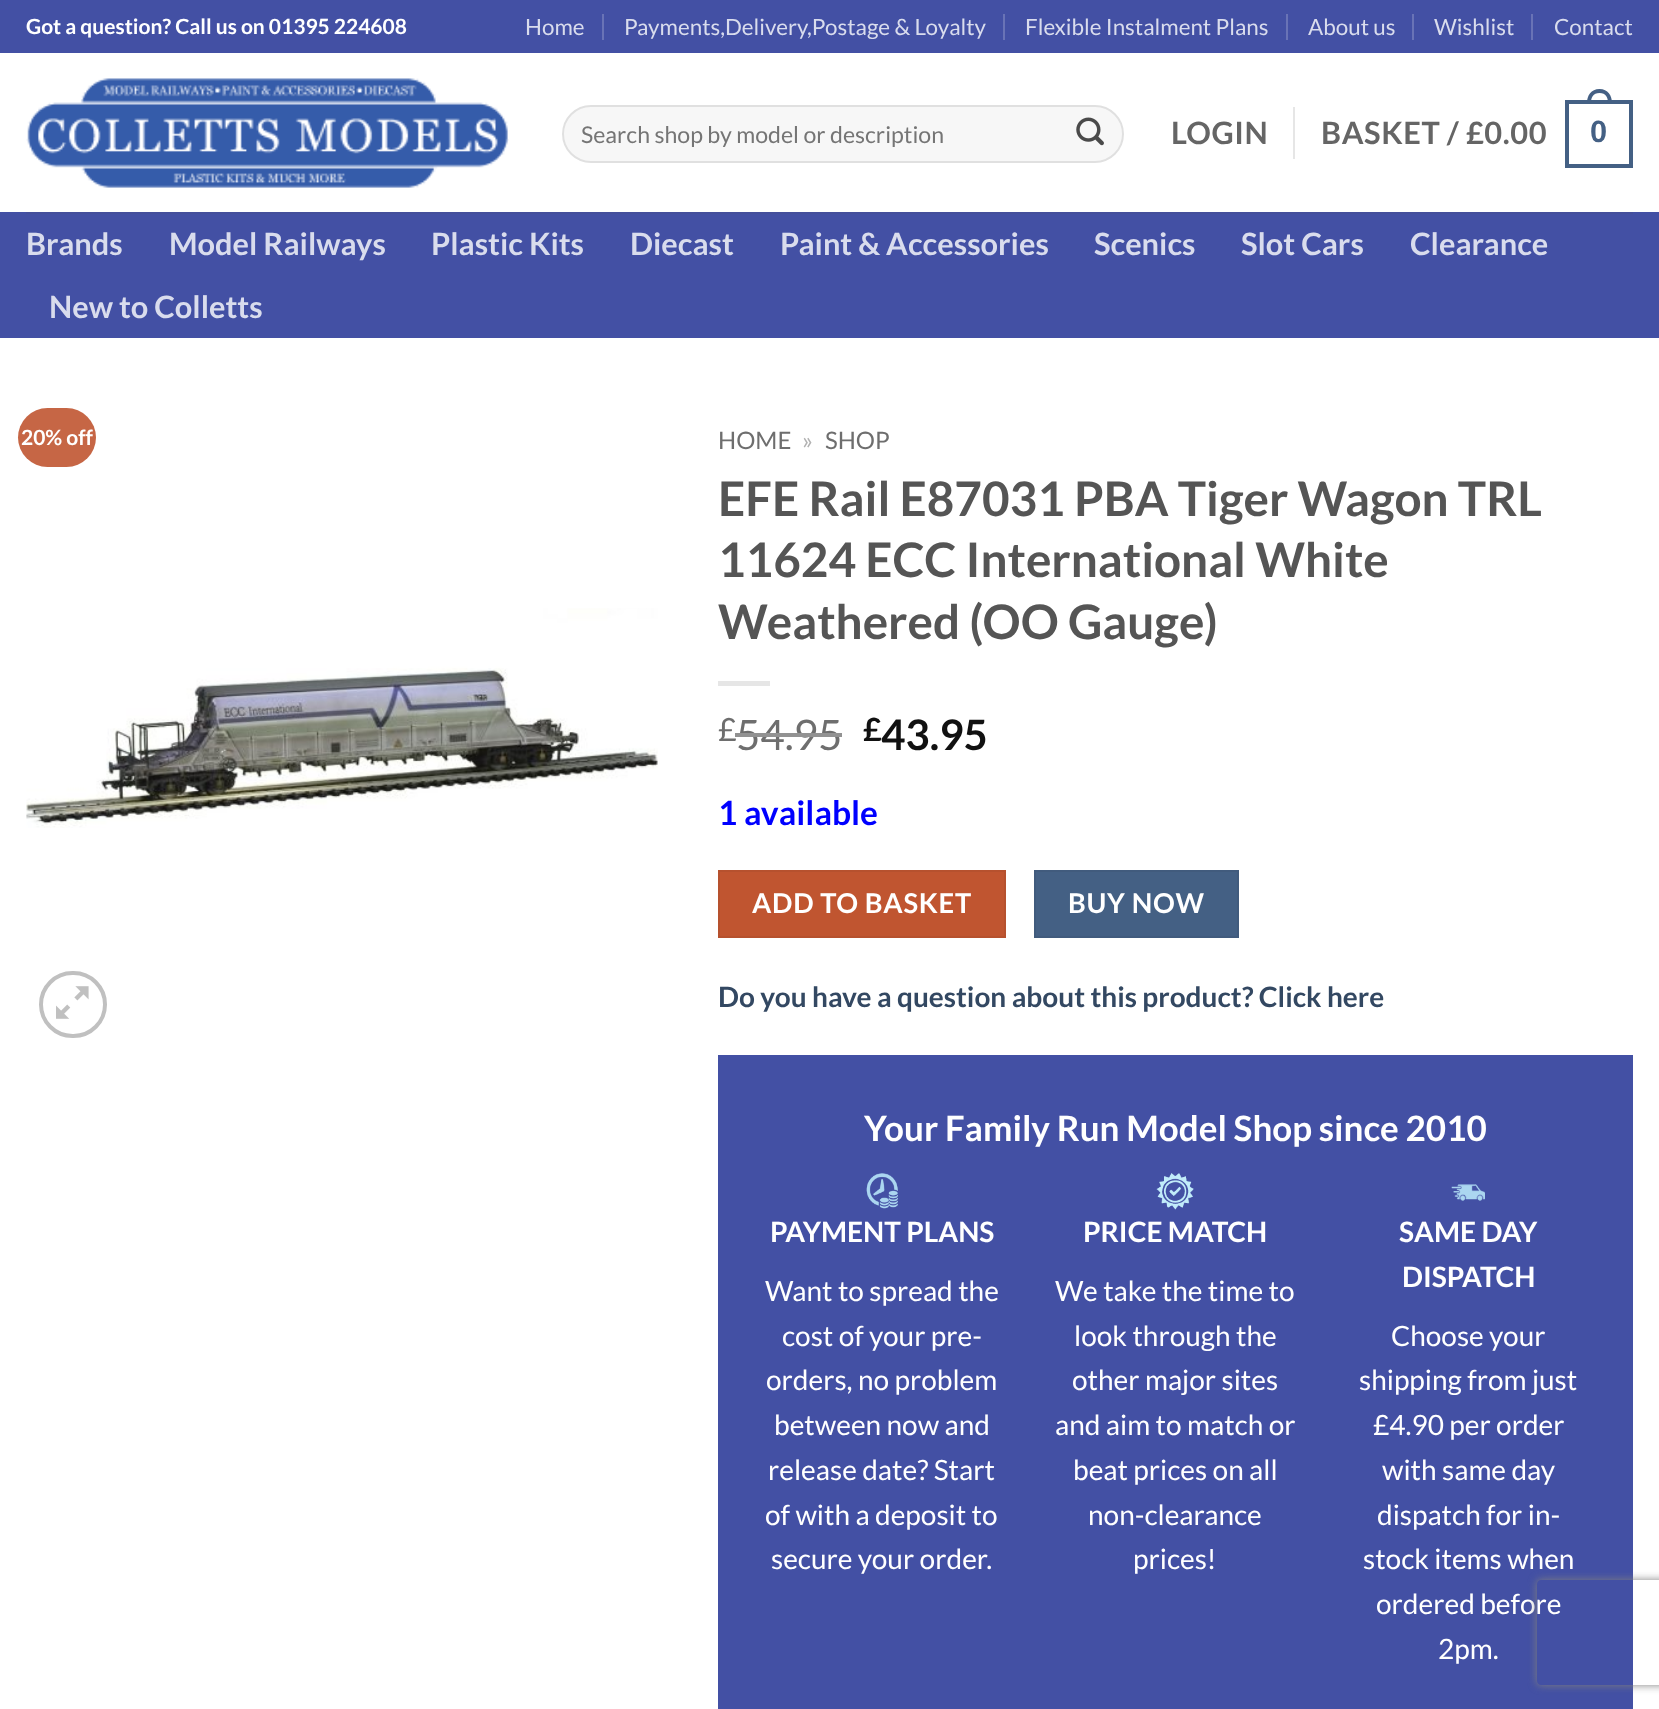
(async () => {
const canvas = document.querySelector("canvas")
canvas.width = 1659
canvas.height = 1709
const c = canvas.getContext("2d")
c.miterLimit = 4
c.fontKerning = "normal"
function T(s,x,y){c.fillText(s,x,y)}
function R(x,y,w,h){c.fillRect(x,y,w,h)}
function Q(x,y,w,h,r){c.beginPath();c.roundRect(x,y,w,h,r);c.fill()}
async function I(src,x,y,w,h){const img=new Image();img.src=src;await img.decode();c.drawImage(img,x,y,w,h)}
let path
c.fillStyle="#fff"
R(0,0,1659,1709)
c.fillStyle="#4350a4"
R(0,0,1659,53)
c.font="bold 21px Lato"
c.fillStyle="#fff"
T("Got a question? Call us on 01395 224608",26,34)
c.font="22.4px Lato"
c.fillStyle="#d9dced"
T("Home",525,35)
c.fillStyle="#6973b6"
R(602,14,2,26)
c.fillStyle="#d9dced"
T("Payments,Delivery,Postage & Loyalty",624,35)
c.fillStyle="#6973b6"
R(1003,14,2,26)
c.fillStyle="#d9dced"
T("Flexible Instalment Plans",1025,35)
c.fillStyle="#6973b6"
R(1286,14,2,26)
c.fillStyle="#d9dced"
T("About us",1308,35)
c.fillStyle="#6973b6"
R(1412,14,2,26)
c.fillStyle="#d9dced"
T("Wishlist",1434,35)
c.fillStyle="#6973b6"
R(1531,14,2,26)
c.fillStyle="#d9dced"
T("Contact",1554,35)
await I("1.png",26,78,483,110)
c.fillStyle="#f7f7f7"
Q(562,105,562,58,29)
c.beginPath()
c.roundRect(563,106,560,56,28)
c.strokeStyle="#00000017"
c.lineWidth=2
c.stroke()
c.font="23.1px Lato"
c.fillStyle="#757575"
T("Search shop by model or description",581,143)
await I("2.png",1076,117,28,29)
c.letterSpacing="0.6px"
c.font="bold 30.75px Lato"
c.fillStyle="#656565"
T("LOGIN",1171,144)
c.fillStyle="#e6e6e6"
R(1293,107,2,52)
c.fillStyle="#656565"
T("BASKET / £0.00",1321,144)
c.strokeStyle="#446084"
c.lineWidth=4
c.strokeRect(1567,102,64,64)
c.fillStyle="#446084"
path = new Path2D("M1599.5 89c8.5 0 12.5 6.5 12.5 14h-25c0-7.5 4-14 12.5-14zm0 4c6.5 0 8.5 4.5 8.5 10h-17c0-5.5 2-10 8.5-10z")
c.fill(path,"evenodd")
c.font="bold 30.75px Liberation Sans"
T("0",1590,142)
c.fillStyle="#4350a4"
R(0,212,1659,126)
c.fillStyle="#444f9b"
R(26,212,1607,2)
c.letterSpacing="0px"
c.font="bold 30.75px Lato"
c.fillStyle="#d9dced"
T("Brands",26,255)
T("Model Railways",169,255)
T("Plastic Kits",431,255)
T("Diecast",630,255)
T("Paint & Accessories",780,255)
T("Scenics",1094,255)
T("Slot Cars",1241,255)
T("Clearance",1410,255)
T("New to Colletts",49,318)
c.fillStyle="#c66645"
Q(18,408,78,59,29.5)
c.font="bold 21px Lato"
c.fillStyle="#fff"
T("20% off",21,445)
await I("3.png",26,608,632,220)
c.beginPath()
c.roundRect(41,973,64,63,31.5)
c.strokeStyle="#c0c0c0"
c.stroke()
await I("4.png",56,986,33,33)
c.font="24px Lato"
c.fillStyle="#6e6e6e"
T("HOME",718,449)
c.fillStyle="#b2b2b2"
T("»",802,449)
c.fillStyle="#6e6e6e"
T("SHOP",825,449)
c.font="bold 47.6px Lato"
c.fillStyle="#555"
T("EFE Rail E87031 PBA Tiger Wagon TRL",718,516)
T("11624 ECC International White",718,577)
T("Weathered (OO Gauge)",718,639)
c.fillStyle="#e6e6e6"
R(718,681,52,5)
c.font="32px Lato"
c.fillStyle="#6e6e6e"
T("£",718,741)
c.font="42px Lato"
T("54.95",736,750)
c.fillStyle="#929292"
R(735,733,107,4)
c.font="bold 32px Lato"
c.fillStyle="#111"
T("£",863,741)
c.font="bold 42px Lato"
T("43.95",881,750)
c.font="bold 33.5px Lato"
c.fillStyle="#00f"
T("1 available",718,825)
c.fillStyle="#c05530"
c.beginPath()
c.rect(719,871,286,66)
c.fill()
c.strokeStyle="#b6512e"
c.lineWidth=2
c.stroke()
c.letterSpacing="0.75px"
c.font="bold 27.25px Lato"
c.fillStyle="#fff"
T("ADD TO BASKET",752,913)
c.fillStyle="#446084"
c.beginPath()
c.rect(1035,871,203,66)
c.fill()
c.strokeStyle="#415b7d"
c.stroke()
c.fillStyle="#fff"
T("BUY NOW",1068,913)
c.letterSpacing="0px"
c.font="bold 28px Lato"
c.fillStyle="#334862"
T("Do you have a question about this product? Click here",718,1007)
c.fillStyle="#4350a4"
R(718,1055,915,654)
c.font="bold 35px Lato"
c.fillStyle="#fff"
T("Your Family Run Model Shop since 2010",864,1141)
await I("5.png",866,1173,32,36)
c.font="bold 28px Lato"
T("PAYMENT PLANS",770,1242)
c.font="28px Lato"
T("Want to spread the",765,1301)
T("cost of your pre-",782,1346)
T("orders, no problem",766,1390)
T("between now and",774,1435)
T("release date? Start",768,1480)
T("of with a deposit to",765,1525)
T("secure your order.",771,1569)
await I("6.png",1156,1173,38,37)
c.font="bold 28px Lato"
T("PRICE MATCH",1083,1242)
c.font="28px Lato"
T("We take the time to",1055,1301)
T("look through the",1074,1346)
T("other major sites",1072,1390)
T("and aim to match or",1055,1435)
T("beat prices on all",1073,1480)
T("non-clearance",1088,1525)
T("prices!",1133,1569)
await I("7.png",1451,1184,34,17)
c.font="bold 28px Lato"
T("SAME DAY",1399,1242)
T("DISPATCH",1402,1287)
c.font="28px Lato"
T("Choose your",1391,1346)
T("shipping from just",1359,1390)
T("£4.90 per order",1373,1435)
T("with same day",1382,1480)
T("dispatch for in-",1377,1525)
T("stock items when",1363,1569)
T("ordered before",1376,1614)
T("2pm.",1438,1659)
c.save()
path = new Path2D("M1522 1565h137v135h-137zm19 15h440c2 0 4 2 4 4v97c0 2-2 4-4 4h-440c-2 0-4-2-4-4v-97c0-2 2-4 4-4z")
c.clip(path,"evenodd")
c.fillStyle="#808080"
c.filter="blur(4.5px)"
c.beginPath()
c.roundRect(1537,1580,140,105,4)
c.fill()
c.filter="none"
c.restore()
})()
